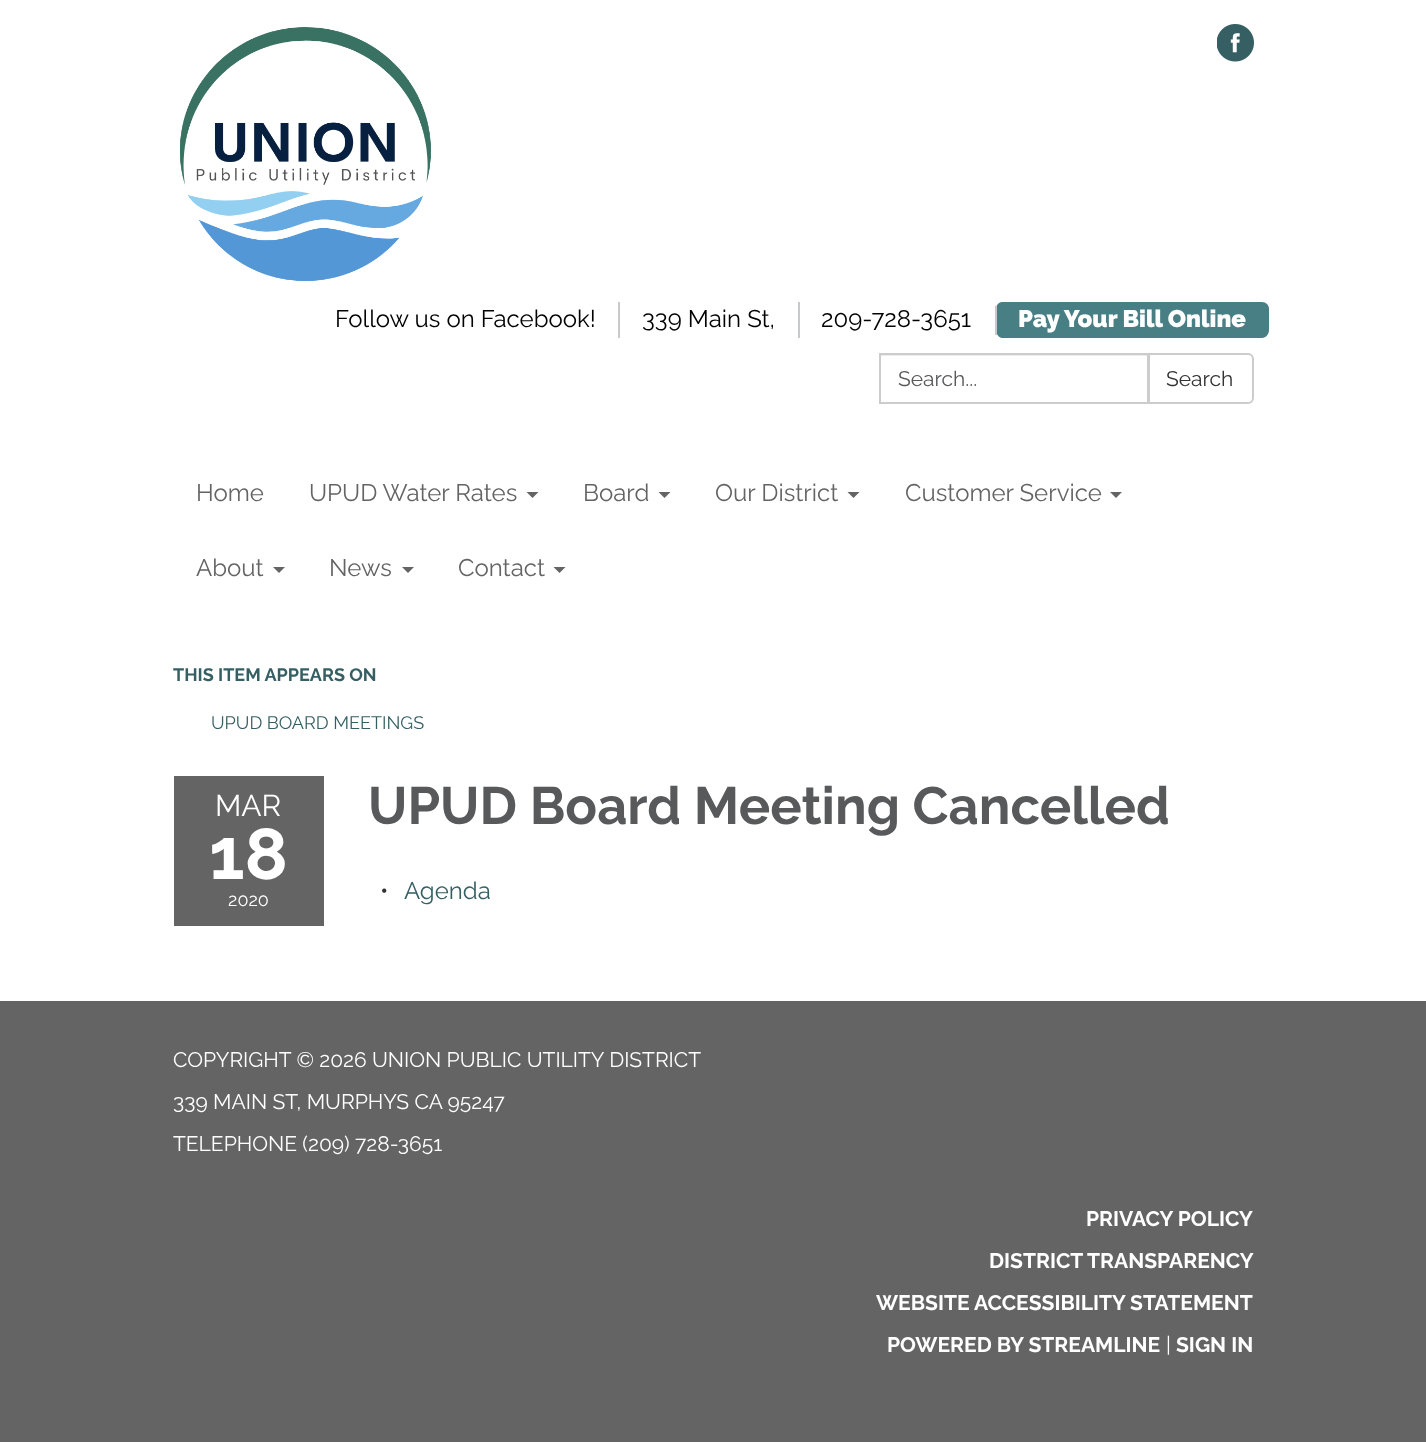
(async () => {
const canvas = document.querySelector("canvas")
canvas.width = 1426
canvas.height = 1442
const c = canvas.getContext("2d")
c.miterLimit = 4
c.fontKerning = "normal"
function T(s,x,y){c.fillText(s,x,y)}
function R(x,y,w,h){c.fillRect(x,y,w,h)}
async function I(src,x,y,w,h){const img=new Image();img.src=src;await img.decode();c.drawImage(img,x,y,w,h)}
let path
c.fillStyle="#646464"
R(0,0,1426,1442)
c.fillStyle="#fff"
R(0,0,1426,456)
await I("1.png",180,27,251,255)
await I("2.png",1217,24,37,38)
c.font="24px Raleway"
c.fillStyle="#000"
T("Follow us on Facebook!",335,327)
c.fillStyle="#c8c9cb"
R(618,302,2,36)
c.fillStyle="#000"
T("339 Main St,",642,327)
c.fillStyle="#c8c9cb"
R(798,302,2,36)
c.fillStyle="#000"
T("209-728-3651",821,327)
c.fillStyle="#487f84"
path = new Path2D("M1002 302h260c4 0 7 3 7 7v21c0 4-3 8-7 8h-260c-3 0-6-4-6-8v-21c0-4 3-7 6-7z")
c.fill(path)
c.fillStyle="#c8c9cb"
R(995,306,2,29)
c.font="900 24px Raleway"
c.fillStyle="#fff"
T("Pay Your Bill Online",1018,327)
c.fillStyle="#ececec"
R(881,355,267,1)
c.strokeStyle="#ccc"
c.lineWidth=2
c.strokeRect(880,354,268,49)
c.font="21px Raleway"
c.fillStyle="#58595b"
T("Search...",898,386)
c.fillStyle="#fff"
c.beginPath()
c.roundRect(1149,354,104,49,[0,5,5,0])
c.fill()
c.stroke()
c.fillStyle="#333"
T("Search",1166,386)
c.fillStyle="#fff"
R(0,456,1426,545)
c.font="24px Raleway"
c.fillStyle="#646464"
T("Home",196,501)
T("UPUD Water Rates",309,501)
path = new Path2D("M526.5 492h12l-6 6z")
c.fill(path)
T("Board",583,501)
path = new Path2D("M658.5 492h12l-6 6z")
c.fill(path)
T("Our District",715,501)
path = new Path2D("M847.5 492h12l-6 6z")
c.fill(path)
T("Customer Service",905,501)
path = new Path2D("M1110 492h12l-6 6z")
c.fill(path)
T("About",196,576)
path = new Path2D("M273 567h12l-6 6z")
c.fill(path)
T("News",329,576)
path = new Path2D("M402 567h12l-6 6z")
c.fill(path)
T("Contact",458,576)
path = new Path2D("M553.5 567h12l-6 6z")
c.fill(path)
c.font="bold 18px Raleway"
c.fillStyle="#365f63"
T("THIS ITEM APPEARS ON",173,681)
c.font="18px Raleway"
T("UPUD BOARD MEETINGS",211,729)
c.fillStyle="#646464"
R(174,776,150,150)
c.font="30px Raleway"
c.fillStyle="#fff"
T("MAR",215,816)
c.font="bold 72px Raleway"
T("18",209,879)
c.font="18px Raleway"
T("2020",228,906)
c.font="bold 52.5px Raleway"
c.fillStyle="#58595b"
T("UPUD Board Meeting Cancelled",368,824)
c.font="24px Raleway"
c.fillStyle="#333"
T("•",380,899)
c.fillStyle="#365f63"
T("Agenda",404,899)
c.font="21px Raleway"
c.fillStyle="#fff"
T("COPYRIGHT © 2026 UNION PUBLIC UTILITY DISTRICT",173,1067)
T("339 MAIN ST, MURPHYS CA 95247",173,1109)
T("TELEPHONE (209) 728-3651",173,1151)
c.font="bold 21px Raleway"
T("PRIVACY POLICY",1086,1226)
T("DISTRICT TRANSPARENCY",989,1268)
T("WEBSITE ACCESSIBILITY STATEMENT",876,1310)
T("POWERED BY STREAMLINE",887,1352)
c.font="21px Raleway"
T("|",1166,1352)
c.font="bold 21px Raleway"
T("SIGN IN",1176,1352)
})()
